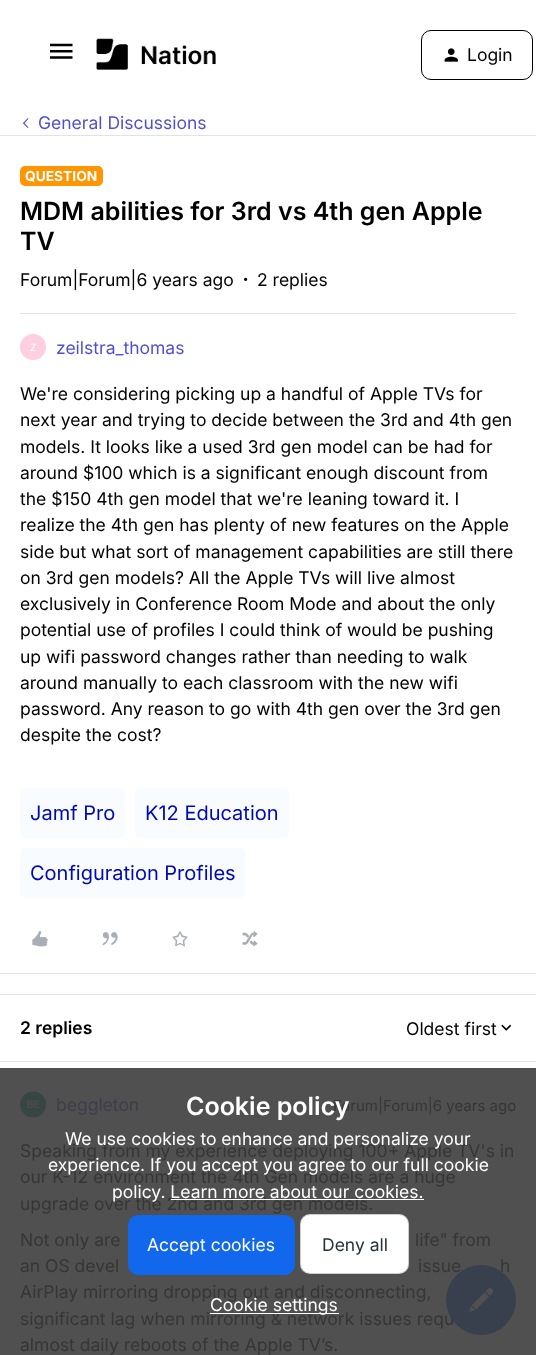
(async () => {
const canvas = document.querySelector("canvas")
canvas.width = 536
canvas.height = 1355
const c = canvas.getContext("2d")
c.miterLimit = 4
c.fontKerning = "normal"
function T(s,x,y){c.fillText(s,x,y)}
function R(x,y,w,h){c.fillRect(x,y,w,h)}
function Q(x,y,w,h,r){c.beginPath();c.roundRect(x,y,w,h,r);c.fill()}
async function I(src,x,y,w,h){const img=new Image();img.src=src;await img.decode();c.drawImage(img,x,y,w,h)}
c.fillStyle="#fff"
R(0,0,536,1355)
c.fillStyle="#505050"
R(0,1068,536,287)
await I("1.png",50,43,23,16)
await I("2.png",96,38,120,32)
c.beginPath()
c.roundRect(421.5,30.5,111,49,9.5)
c.strokeStyle="#000"
c.stroke()
await I("3.png",444,48,14,14)
c.font="17.5px Inter"
c.fillStyle="#000"
T("Login",467,61)
await I("4.png",22,118,7,10)
c.fillStyle="#5050d6"
T("General Discussions",38,129)
c.fillStyle="#e3e3e4"
R(0,135,536,1)
R(0,973,536,1)
c.fillStyle="#ff9500"
Q(20,166,83,20,5)
c.font="bold 13.75px Inter"
c.fillStyle="#fff"
T("QUESTION",25,181)
c.font="600 25px Inter"
c.fillStyle="#000"
T("MDM abilities for 3rd vs 4th gen Apple",20,220)
T("TV",20,250)
c.font="17.5px Inter"
T("Forum|Forum|6 years ago",20,286)
await I("5.png",244,277,4,4)
T("2 replies",257,286)
c.fillStyle="#e3e3e4"
R(20,313,496,1)
c.fillStyle="#ffcee0"
c.beginPath()
c.arc(33,347,13,0,7)
c.fill()
c.font="10px Inter"
c.fillStyle="#fff"
T("Z",30,351)
c.font="17.5px Inter"
c.fillStyle="#5050d6"
T("zeilstra_thomas",56,354)
c.fillStyle="#000"
T("We're considering picking up a handful of Apple TVs for",20,400)
T("next year and trying to decide between the 3rd and 4th gen",20,426)
T("models. It looks like a used 3rd gen model can be had for",20,453)
T("around $100 which is a significant enough discount from",20,479)
T("the $150 4th gen model that we're leaning toward it. I",20,505)
T("realize the 4th gen has plenty of new features on the Apple",20,531)
T("side but what sort of management capabilities are still there",20,558)
T("on 3rd gen models? All the Apple TVs will live almost",20,584)
T("exclusively in Conference Room Mode and about the only",20,610)
T("potential use of profiles I could think of would be pushing",20,636)
T("up wifi password changes rather than needing to walk",20,663)
T("around manually to each classroom with the new wifi",20,689)
T("password. Any reason to go with 4th gen over the 3rd gen",20,715)
T("despite the cost?",20,741)
c.fillStyle="#f8fbff"
Q(20,788,105,50,5)
c.font="20px Inter"
c.fillStyle="#0009b5"
T("Jamf Pro",30,820)
c.fillStyle="#f8fbff"
Q(135,788,154,50,5)
c.fillStyle="#0009b5"
T("K12 Education",145,820)
c.fillStyle="#f8fbff"
Q(20,848,225,50,5)
c.fillStyle="#0009b5"
T("Configuration Profiles",30,880)
await I("6.png",32,931,16,16)
await I("7.png",102,932,16,14)
await I("8.png",172,931,16,16)
await I("9.png",242,931,16,16)
c.fillStyle="#e3e3e4"
R(0,994,536,1)
R(0,1061,536,1)
c.font="600 17.5px Inter"
c.fillStyle="#000"
T("2 replies",20,1034)
c.font="17.5px Inter"
T("Oldest first",406,1035)
await I("10.png",501,1024,11,7)
await I("11.png",20,1091,26,27)
c.fillStyle="#3e3e4b"
T("beggleton",56,1111)
c.font="15px Inter"
c.fillStyle="#363636"
T("Forum|Forum|6 years ago",333,1111)
c.font="17.5px Inter"
T("Speaking from my experience deploying 100+ Apple TV's in",20,1157)
T("our K-12 environment the 4th Gen models are a huge",20,1183)
T("upgrade over the 2nd and 3rd gen models.",20,1210)
T("Not only are",20,1246)
T("life\" from",415,1246)
T("an OS devel",20,1272)
T("issue",418,1272)
T("h",500,1272)
T("AirPlay mirroring dropping out and disconnecting,",20,1298)
T("significant lag when mirroring & network issues requ",20,1325)
T("almost daily reboots of the Apple TV’s.",20,1351)
c.font="600 25px Inter"
c.fillStyle="#fff"
T("Cookie policy",186,1115)
c.font="17.5px Inter"
T("We use cookies to enhance and personalize your",65,1145)
T("experience. If you accept you agree to our full cookie",48,1171)
T("policy. Learn more about our cookies.",112,1198)
R(171,1199,253,1)
c.fillStyle="#1268ec"
c.beginPath()
c.roundRect(128.5,1215.5,166,59,9.5)
c.fill()
c.strokeStyle="#1268ec"
c.stroke()
c.fillStyle="#fff"
T("Accept cookies",147,1251)
Q(300,1214,109,60,10)
c.beginPath()
c.roundRect(300.5,1214.5,108,59,9.5)
c.strokeStyle="#00000033"
c.stroke()
c.fillStyle="#25313b"
T("Deny all",322,1251)
c.fillStyle="#fff"
R(210,1313,129,1)
T("Cookie settings",210,1311)
c.fillStyle="#38404e"
c.beginPath()
c.arc(481,1300,34.5,0,7)
c.fill()
c.strokeStyle="#38404e"
c.stroke()
await I("12.png",469,1288,25,24)
})()
